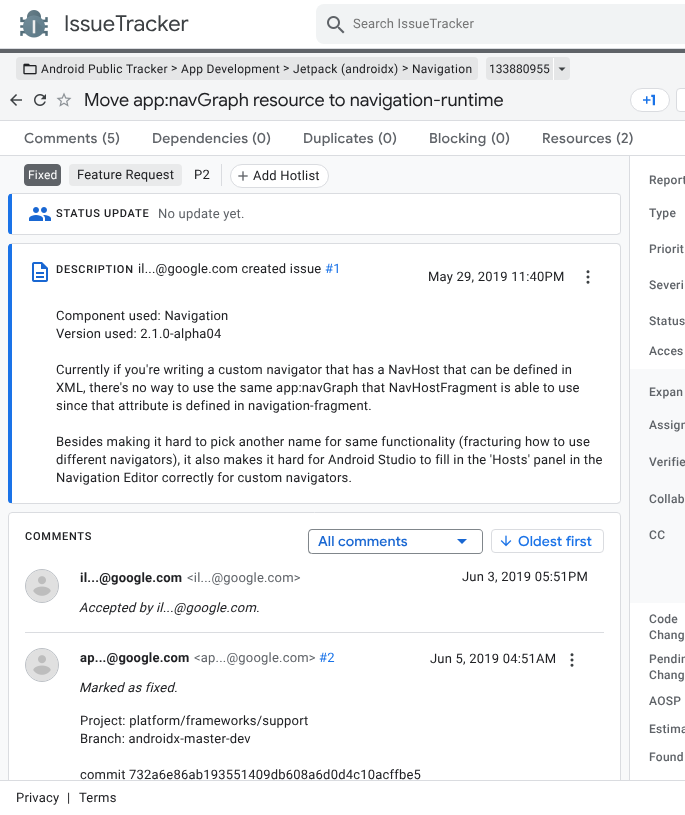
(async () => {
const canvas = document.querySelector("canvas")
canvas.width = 685
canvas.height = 815
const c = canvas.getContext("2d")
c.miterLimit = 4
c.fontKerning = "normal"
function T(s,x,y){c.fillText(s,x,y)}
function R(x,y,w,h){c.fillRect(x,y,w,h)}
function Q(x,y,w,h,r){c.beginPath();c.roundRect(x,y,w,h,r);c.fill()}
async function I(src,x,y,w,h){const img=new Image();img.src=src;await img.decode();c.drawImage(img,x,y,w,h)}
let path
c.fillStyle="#fff"
R(0,0,685,815)
await I("1.png",20,10,28,28)
c.letterSpacing="0.1px"
c.font="22px Google Sans"
c.fillStyle="#3c4043"
T("IssueTracker",64,31)
c.fillStyle="#f1f3f4"
Q(316,4,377,40,8)
await I("2.png",327,16,18,18)
c.letterSpacing="0.2px"
c.font="13px Roboto"
c.fillStyle="#757575"
T("Search IssueTracker",353,28)
c.fillStyle="#dadce0"
R(0,48,685,1)
c.fillStyle="#f4f5f6"
R(0,53,685,67)
c.fillStyle="#5f6368"
R(0,49,685,4)
c.fillStyle="#dadce0"
R(0,120,685,1)
c.fillStyle="#e5e6e7"
Q(16,57,462,23,4)
await I("3.png",23,63,14,12)
c.letterSpacing="0.3px"
c.font="12px Roboto"
c.fillStyle="#202124"
T("Android Public Tracker",41,73)
T(">",171,72)
T("App Development",181,73)
T(">",283,72)
T("Jetpack (androidx)",293,73)
T(">",402,72)
T("Navigation",412,73)
c.fillStyle="#e5e6e7"
Q(486,57,84,23,4)
c.letterSpacing="0px"
c.fillStyle="#202124"
T("133880955",489,73)
c.fillStyle="#fff"
R(553,58,1,22)
c.fillStyle="#3c4043"
path = new Path2D("M558.5 67.5l3.5 3.5l3.5-3.5z")
c.fill(path)
await I("4.png",10,94,12,12)
await I("5.png",34,94,12,12)
await I("6.png",56,92,16,15)
c.font="18px Google Sans"
c.fillStyle="#202124"
T("Move app:navGraph resource to navigation-runtime",84,106)
c.fillStyle="#fff"
c.beginPath()
c.roundRect(630.5,88.5,39,23,11.5)
c.fill()
c.strokeStyle="#dadce0"
c.stroke()
await I("7.png",643,94,12,12)
c.beginPath()
c.roundRect(676.5,88.5,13,23,3.5)
c.fill()
c.stroke()
c.fillStyle="#dadce0"
R(0,155,685,1)
c.letterSpacing="0.25px"
c.font="500 14px Google Sans"
c.fillStyle="#5f6368"
T("Comments",24,143)
T("(5)",102,143)
T("Dependencies",152,143)
T("(0)",252,143)
T("Duplicates",303,143)
T("(0)",378,143)
T("Blocking",429,143)
T("(0)",491,143)
T("Resources",542,143)
T("(2)",616,143)
c.fillStyle="#f8f9fa"
R(0,156,629,624)
c.fillStyle="#dadce0"
R(221,164,1,22)
c.fillStyle="#5f6368"
c.beginPath()
c.roundRect(24.5,164.5,36,21,3.5)
c.fill()
c.strokeStyle="#5f6368"
c.stroke()
c.letterSpacing="0.2px"
c.font="12px Roboto"
c.fillStyle="#fff"
T("Fixed",28,179)
c.fillStyle="#e9eaeb"
Q(69,164,113,22,4)
c.font="13px Roboto"
c.fillStyle="#202124"
T("Feature Request",77,179)
T("P2",194,179)
c.fillStyle="#fff"
c.beginPath()
c.roundRect(230.5,164.5,98,23,11.5)
c.fill()
c.strokeStyle="#dadce0"
c.stroke()
await I("8.png",238,171,10,10)
c.fillStyle="#202124"
T("Add Hotlist",253,180)
c.fillStyle="#fff"
path = new Path2D("M12 194h605c2 0 3 1 3 3v34c0 2-1 3-3 3h-605z")
c.fill(path)
c.fillStyle="#dadce0"
path = new Path2D("M12 193l-2 1h2h605l2 1l1-1l-3-1z")
c.fill(path)
path = new Path2D("M621 231v-34c0-1-.5-2-1-3l-1 1c1 0 1 1 1 2v34c0 1 0 2-1 2l1 1c.5-1 1-2 1-3z")
c.fill(path)
path = new Path2D("M12 235h605l3-1l-1-1l-2 1h-605h-2z")
c.fill(path)
c.fillStyle="#1a73e8"
path = new Path2D("M12 194h-2c-1 0-2 2-2 3v34c0 1 1 3 2 3h2z")
c.fill(path)
await I("9.png",29,207,22,14)
c.letterSpacing="0.75px"
c.font="500 11px Roboto"
c.fillStyle="#202124"
T("STATUS UPDATE",56,217)
c.letterSpacing="0.2px"
c.font="13px Roboto"
c.fillStyle="#5f6368"
T("No update yet.",158,218)
c.fillStyle="#fff"
path = new Path2D("M12 244h605c2 0 3 1 3 3v253c0 2-1 3-3 3h-605z")
c.fill(path)
c.fillStyle="#dadce0"
path = new Path2D("M12 243l-2 1h2h605l2 1l1-1l-3-1z")
c.fill(path)
path = new Path2D("M621 500v-253c0-1-1-2-1-3l-1 1l1 2v254l-1 1l1 1z")
c.fill(path)
path = new Path2D("M12 504h605l3-1l-1-1l-2 1h-605h-2z")
c.fill(path)
c.fillStyle="#1a73e8"
path = new Path2D("M12 244h-2c-1 0-2 2-2 3v253c0 1 1 3 2 3h2z")
c.fill(path)
await I("10.png",32,262,16,20)
c.letterSpacing="0.75px"
c.font="500 11px Roboto"
c.fillStyle="#202124"
T("DESCRIPTION",56,273)
c.letterSpacing="0.2px"
c.font="13px Roboto"
T("il...@google.com created issue",138,273)
c.fillStyle="#1a73e8"
T("#1",325,273)
c.fillStyle="#202124"
T("May 29, 2019 11:40PM",428,281)
await I("11.png",586,270,4,14)
T("Component used: Navigation",56,320)
T("Version used: 2.1.0-alpha04",56,338)
T("Currently if you're writing a custom navigator that has a NavHost that can be defined in",56,374)
T("XML, there's no way to use the same app:navGraph that NavHostFragment is able to use",56,392)
T("since that attribute is defined in navigation-fragment.",56,410)
T("Besides making it hard to pick another name for same functionality (fracturing how to use",56,446)
T("different navigators), it also makes it hard for Android Studio to fill in the 'Hosts' panel in the",56,464)
T("Navigation Editor correctly for custom navigators.",56,482)
c.fillStyle="#fff"
c.beginPath()
c.roundRect(8,512,613,268,[4,4,0,0])
c.fill()
c.fillStyle="#dadce0"
R(0,780,685,1)
c.save()
c.beginPath()
c.rect(0,156,629,624)
c.clip()
c.beginPath()
c.roundRect(8.5,512.5,612,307,3.5)
c.stroke()
c.restore()
c.letterSpacing="0.75px"
c.font="500 11px Roboto"
c.fillStyle="#202124"
T("COMMENTS",25,540)
c.letterSpacing="0.1px"
c.font="500 14px Google Sans"
c.fillStyle="#1967d2"
T("All comments",318,546)
c.fillStyle="#80868b"
path = new Path2D("M312 529h8v25c-13 0-12 1-12-12.5v-5.5c0-3 0-7 4-7zm0 1h8v23h-8c-1.5 0-3-1.5-3-3v-17c0-1.5 1.5-3 3-3z")
c.fill(path,"evenodd")
c.fillStyle="#1967d2"
path = new Path2D("M457 539l5 5l5-5z")
c.fill(path)
c.fillStyle="#80868b"
path = new Path2D("M320 529h159c2 0 4 2 4 4v17c0 2-2 4-4 4h-159zm0 1h159c2 0 3 1 3 3v17c0 2-1 3-3 3h-159z")
c.fill(path,"evenodd")
c.beginPath()
c.roundRect(491.5,529.5,112,23,3.5)
c.stroke()
await I("12.png",500,535,12,12)
c.fillStyle="#1a73e8"
T("Oldest first",518,546)
c.fillStyle="#dadce0"
R(25,632,579,1)
await I("13.png",26,570,32,32)
c.beginPath()
c.arc(42,586,16.5,0,7)
c.strokeStyle="#bdc1c6"
c.stroke()
c.letterSpacing="0.2px"
c.font="bold 13px Roboto"
c.fillStyle="#202124"
T("il...@google.com",80,582)
c.font="13px Roboto"
c.fillStyle="#5f6368"
T("<il...@google.com>",187,582)
c.fillStyle="#202124"
T("Jun 3, 2019 05:51PM",462,581)
c.font="italic 13px Roboto"
T("Accepted by il...@google.com.",79,612)
await I("13.png",26,649,32,32)
c.beginPath()
c.arc(42,665,16.5,0,7)
c.stroke()
c.font="bold 13px Roboto"
T("ap...@google.com",80,662)
c.font="13px Roboto"
c.fillStyle="#5f6368"
T("<ap...@google.com>",194,662)
c.fillStyle="#1a73e8"
T("#2",319,662)
c.fillStyle="#202124"
T("Jun 5, 2019 04:51AM",430,663)
await I("11.png",570,653,4,14)
c.font="italic 13px Roboto"
T("Marked as fixed.",79,692)
c.font="13px Roboto"
T("Project: platform/frameworks/support",80,725)
T("Branch: androidx-master-dev",80,743)
T("commit 732a6e86ab193551409db608a6d0d4c10acffbe5",80,779)
c.fillStyle="#dadce0"
R(629,156,1,624)
c.letterSpacing="0.3px"
c.font="500 12px Roboto"
c.fillStyle="#5f6368"
T("Report",649,184)
T("Type",649,217)
T("Priorit",649,253)
T("Severi",649,289)
T("Status",649,325)
T("Acces",649,355)
c.fillStyle="#f8f9fa"
R(630,369,55,234)
c.fillStyle="#5f6368"
T("Expan",649,396)
T("Assign",649,429)
T("Verifie",649,466)
T("Collab",649,503)
T("CC",649,539)
T("Code",649,623)
T("Chang",649,639)
T("Pendin",649,663)
T("Chang",649,679)
T("AOSP",649,705)
T("Estima",649,733)
T("Found",649,761)
c.letterSpacing="0.2px"
c.font="13px Roboto"
c.fillStyle="#202124"
T("Privacy",16,802)
T("|",67,802)
T("Terms",79,802)
})()
